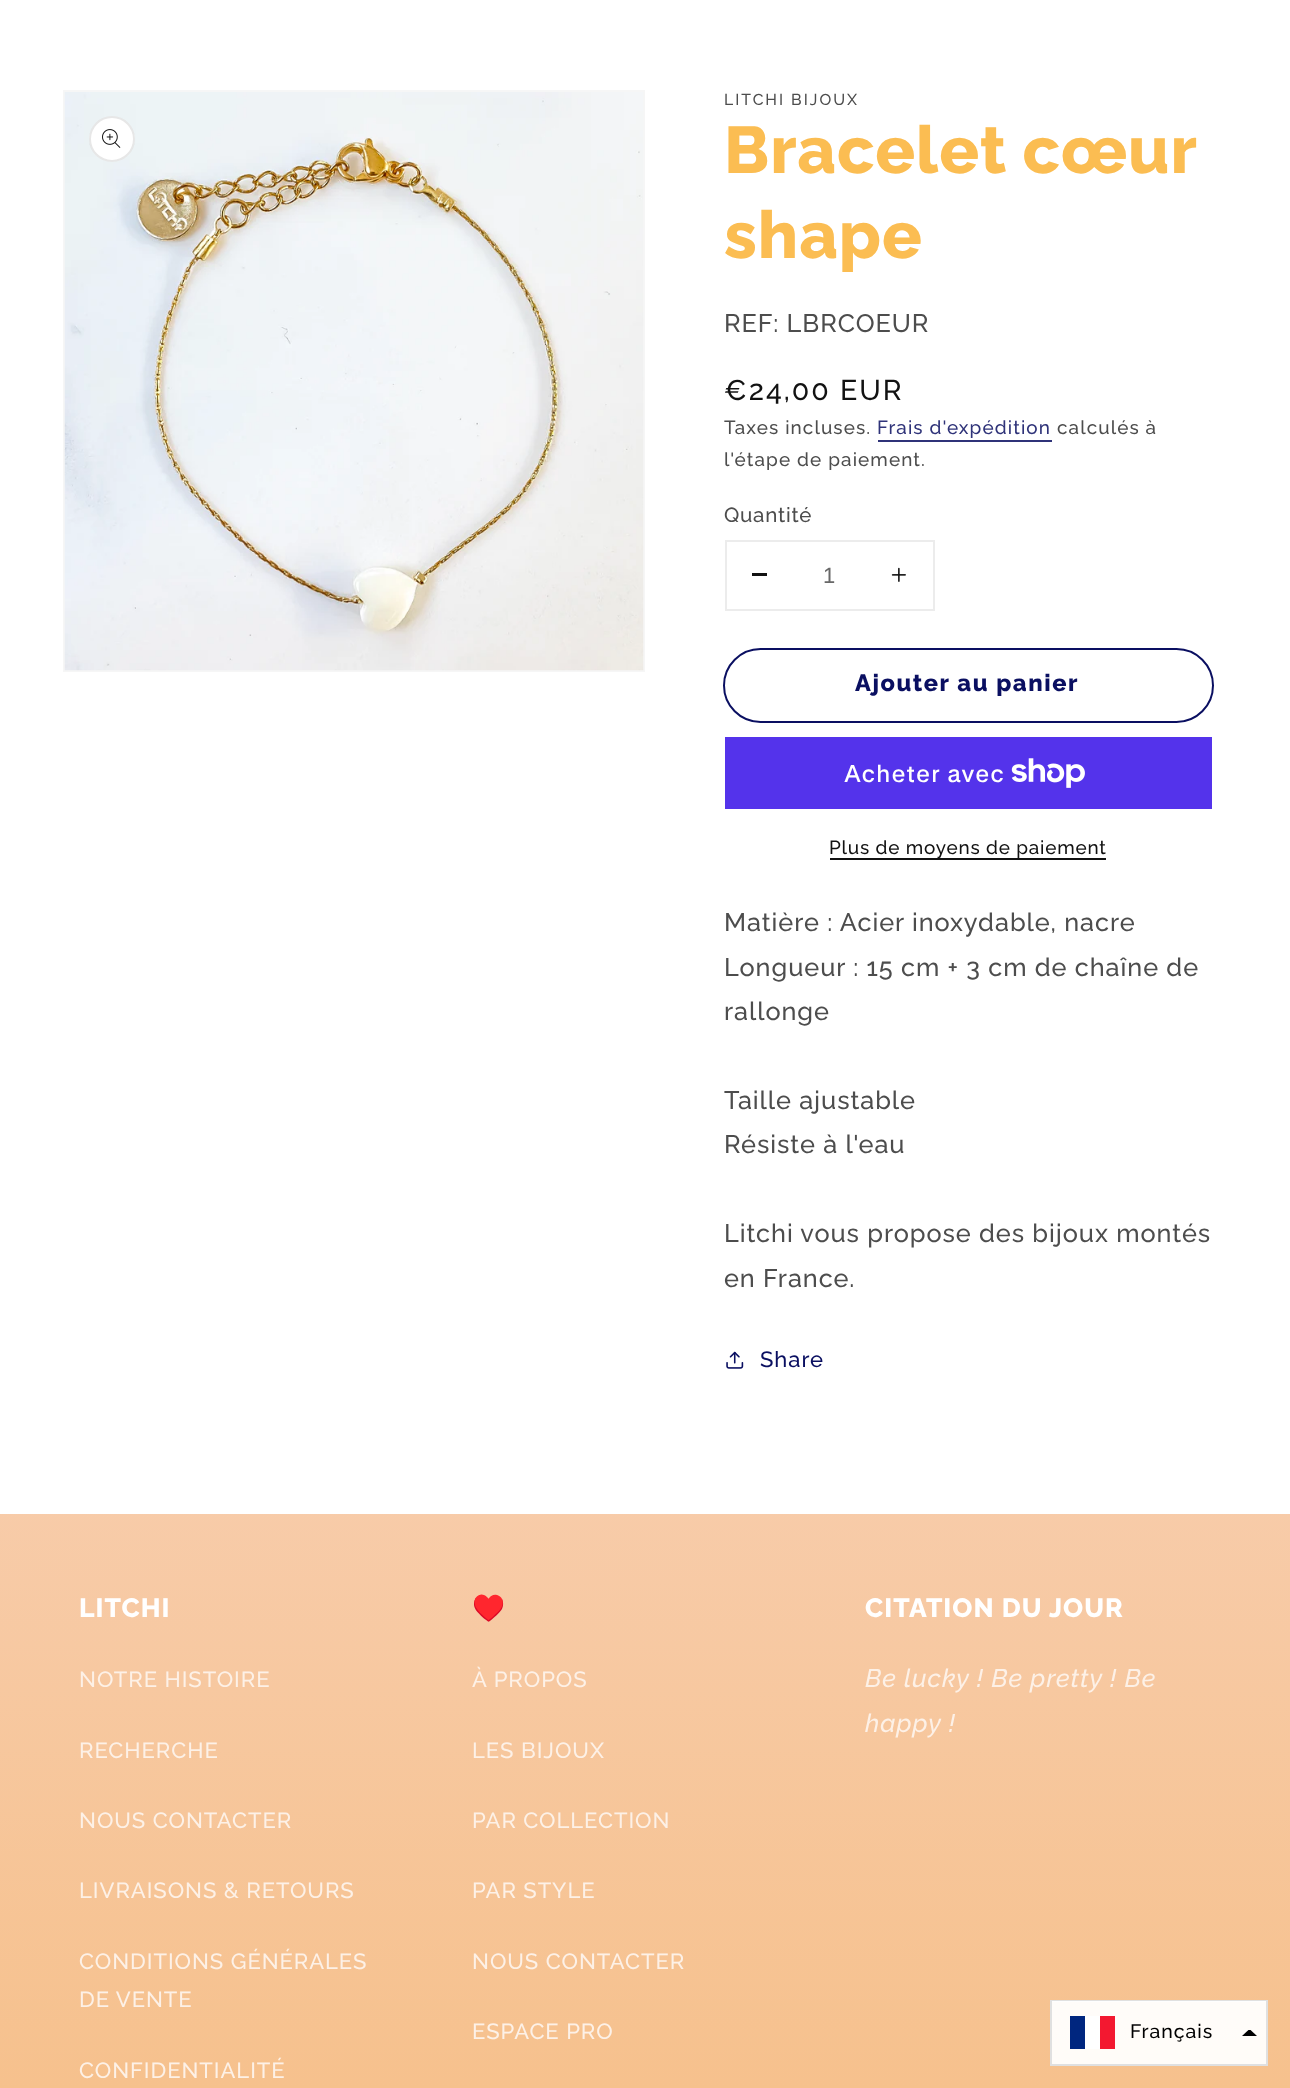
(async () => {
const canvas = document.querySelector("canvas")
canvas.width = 1290
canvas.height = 2088
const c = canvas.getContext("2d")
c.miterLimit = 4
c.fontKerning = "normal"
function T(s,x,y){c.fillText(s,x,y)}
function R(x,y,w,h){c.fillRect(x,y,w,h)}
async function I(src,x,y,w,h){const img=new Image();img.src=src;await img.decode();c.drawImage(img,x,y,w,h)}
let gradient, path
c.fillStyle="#fff"
R(0,0,1290,2088)
c.strokeStyle="#f6f6f6"
c.lineWidth=2
c.strokeRect(64,91,580,580)
await I("1.png",64,92,580,579)
c.beginPath()
c.arc(112,139,23,0,7)
c.fill()
c.beginPath()
c.arc(112,139,22,0,7)
c.strokeStyle="#1212121a"
c.stroke()
await I("2.png",102,129,19,19)
c.letterSpacing="2px"
c.font="500 15.75px Raleway"
c.fillStyle="#4d4d4d"
T("LITCHI BIJOUX",724,105)
c.letterSpacing="1px"
c.wordSpacing="-1px"
c.font="800 66px Raleway"
c.fillStyle="#fbbd52"
T("Bracelet cœur",724,173)
c.wordSpacing="0px"
T("shape",724,258)
c.letterSpacing="0.95px"
c.font="500 25.25px Raleway"
c.fillStyle="#4d4d4d"
T("REF: LBRCOEUR",724,332)
c.letterSpacing="2px"
c.font="500 28.5px Raleway"
c.fillStyle="#121212"
T("€24,00 EUR",724,400)
c.letterSpacing="1.1px"
c.font="500 18.9px Raleway"
c.fillStyle="#4d4d4d"
T("Taxes incluses.",724,434)
c.fillStyle="#2f3379"
T("Frais d'expédition",877,434)
R(878,440,174,2)
c.fillStyle="#4d4d4d"
T("calculés à",1057,434)
T("l'étape de paiement.",724,466)
c.letterSpacing="0.75px"
c.font="500 20.5px Raleway"
T("Quantité",724,522)
c.strokeStyle="#ececec"
c.strokeRect(726,541,208,69)
c.fillStyle="#121212"
R(752,573,15,3)
c.letterSpacing="0px"
c.font="22px Liberation Sans"
c.fillStyle="#686868"
T("1",823,583)
await I("3.png",891,567,15,15)
c.beginPath()
c.roundRect(724,649,489,73,36.5)
c.strokeStyle="#0a0f61"
c.stroke()
c.letterSpacing="1.6px"
c.font="800 23.6px Raleway"
c.fillStyle="#0a0f61"
T("Ajouter au panier",855,691)
c.fillStyle="#5433eb"
R(725,737,487,72)
c.letterSpacing="0.95px"
c.font="500 24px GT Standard"
c.fillStyle="#fff"
T("Acheter avec",844,782)
await I("4.png",1011,758,74,30)
c.fillStyle="#121212"
R(830,858,276,2)
c.letterSpacing="0.8px"
c.font="500 18.9px Raleway"
T("Plus de moyens de paiement",829,854)
c.letterSpacing="0.95px"
c.font="500 25.25px Raleway"
c.fillStyle="#4d4d4d"
T("Matière : Acier inoxydable, nacre",724,931)
T("Longueur : 15 cm + 3 cm de chaîne de",724,976)
T("rallonge",724,1020)
T("Taille ajustable",724,1109)
T("Résiste à l'eau",724,1153)
T("Litchi vous propose des bijoux montés",724,1242)
T("en France.",724,1287)
await I("5.png",726,1351,18,18)
c.font="500 22px Raleway"
c.fillStyle="#0a0f61"
T("Share",760,1367)
gradient = c.createLinearGradient(645,0,645,2088)
gradient.addColorStop(0,"#fbe6f0")
gradient.addColorStop(1,"#f6c18d")
c.fillStyle = gradient
R(0,1514,1290,574)
c.letterSpacing="1px"
c.font="800 26.5px Raleway"
c.fillStyle="#fff"
T("LITCHI",79,1617)
c.letterSpacing="0.95px"
c.font="500 22px Raleway"
c.fillStyle="#fdf1e7"
T("NOTRE HISTOIRE",79,1687)
T("RECHERCHE",79,1758)
T("NOUS CONTACTER",79,1828)
T("LIVRAISONS & RETOURS",79,1898)
T("CONDITIONS GÉNÉRALES",79,1969)
T("DE VENTE",79,2007)
T("CONFIDENTIALITÉ",79,2078)
c.letterSpacing="1px"
c.font="bold 26.5px Noto Color Emoji"
c.fillStyle="#fff"
T("♥️",472,1617)
c.letterSpacing="0.95px"
c.font="500 22px Raleway"
c.fillStyle="#fdf1e7"
T("À PROPOS",472,1687)
T("LES BIJOUX",472,1758)
T("PAR COLLECTION",472,1828)
T("PAR STYLE",472,1898)
T("NOUS CONTACTER",472,1969)
T("ESPACE PRO",472,2039)
c.letterSpacing="1px"
c.font="800 26.5px Raleway"
c.fillStyle="#fff"
T("CITATION DU JOUR",865,1617)
c.letterSpacing="0.95px"
c.font="italic 500 25.25px Raleway"
c.fillStyle="#fdf1e7"
T("Be lucky ! Be pretty ! Be",865,1687)
T("happy !",865,1732)
c.strokeStyle="#e0e0e0"
c.strokeRect(1051,2001,216,64)
c.fillStyle="#fffffff0"
R(1052,2001,214,63)
c.fillStyle="#fff"
R(1085,2016,15,33)
c.fillStyle="#00267f"
R(1070,2016,15,33)
c.fillStyle="#f31830"
R(1100,2016,15,33)
c.font="500 19.5px Raleway"
c.fillStyle="#000"
T("Français",1130,2038)
c.save()
c.beginPath()
c.rect(1242,2030,15,7)
c.clip()
path = new Path2D("M1242 2036l7.5-7l7.5 7z")
c.fill(path,"evenodd")
c.restore()
})()
